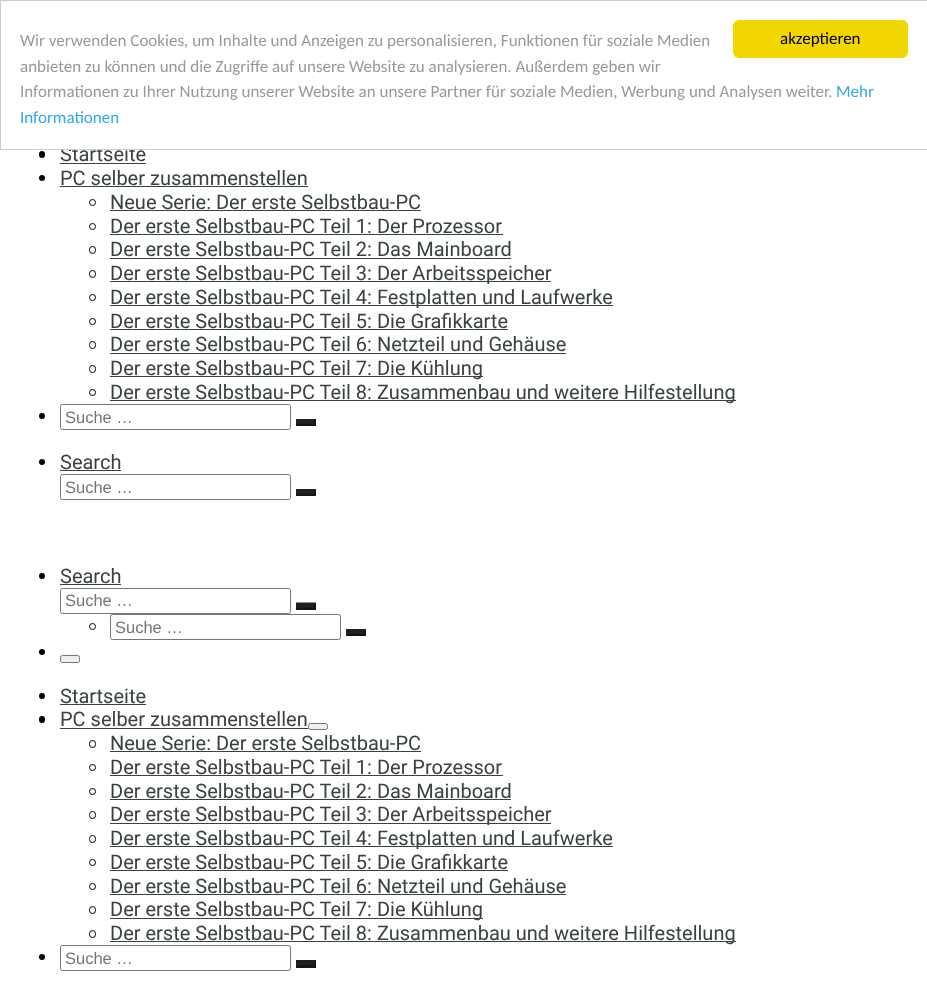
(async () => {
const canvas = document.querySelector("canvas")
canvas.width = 927
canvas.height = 981
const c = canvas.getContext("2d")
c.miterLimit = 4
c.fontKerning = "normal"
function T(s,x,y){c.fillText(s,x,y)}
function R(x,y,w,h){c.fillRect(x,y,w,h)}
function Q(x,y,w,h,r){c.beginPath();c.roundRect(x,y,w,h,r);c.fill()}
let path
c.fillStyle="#fff"
R(0,0,927,981)
c.font="20px Roboto"
c.fillStyle="#394143"
T("Startseite",60,161)
c.fillStyle="#fff"
R(61,146,72,3)
c.strokeStyle="#ccc"
c.strokeRect(.5,.5,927,149)
c.fillStyle="#f1d600"
Q(733,20,175,38,6)
c.font="17px Carlito"
c.fillStyle="#000"
T("akzeptieren",780,44)
c.fillStyle="#999"
T("Wir verwenden Cookies, um Inhalte und Anzeigen zu personalisieren, Funktionen für soziale Medien",20,46)
T("anbieten zu können und die Zugriffe auf unsere Website zu analysieren. Außerdem geben wir",20,72)
T("Informationen zu Ihrer Nutzung unserer Website an unsere Partner für soziale Medien, Werbung und Analysen weiter.",20,97)
c.fillStyle="#31a8f0"
T("Mehr",836,97)
T("Informationen",20,123)
c.fillStyle="#000"
Q(39,151,6,7,3)
c.fillStyle="#394143"
R(60,163,86,1)
c.fillStyle="#000"
c.beginPath()
c.arc(42,178,3,0,7)
c.fill()
c.font="20px Roboto"
c.fillStyle="#394143"
T("PC selber zusammenstellen",60,185)
R(60,186,248,1)
c.beginPath()
c.arc(92.5,202.5,3,0,7)
c.strokeStyle="#000"
c.stroke()
T("Neue Serie: Der erste Selbstbau-PC",110,209)
R(110,210,311,1)
c.beginPath()
c.arc(92.5,226.5,3,0,7)
c.stroke()
T("Der erste Selbstbau-PC Teil 1: Der Prozessor",110,233)
R(110,234,393,1)
c.beginPath()
c.roundRect(89.5,246.5,6,7,3)
c.stroke()
T("Der erste Selbstbau-PC Teil 2: Das Mainboard",110,256)
R(110,258,401,1)
c.beginPath()
c.roundRect(89.5,270.5,6,7,3)
c.stroke()
R(110,281,441,1)
T("Der erste Selbstbau-PC Teil 3: Der Arbeitsspeicher",110,280)
c.beginPath()
c.arc(92.5,297.5,3,0,7)
c.stroke()
R(110,305,503,1)
T("Der erste Selbstbau-PC Teil 4: Festplatten und Laufwerke",110,304)
c.beginPath()
c.arc(92.5,321.5,3,0,7)
c.stroke()
T("Der erste Selbstbau-PC Teil 5: Die Grafikkarte",110,328)
R(110,329,398,1)
c.beginPath()
c.roundRect(89.5,341.5,6,7,3)
c.stroke()
T("Der erste Selbstbau-PC Teil 6: Netzteil und Gehäuse",110,351)
R(110,353,456,1)
c.beginPath()
c.roundRect(89.5,365.5,6,7,3)
c.stroke()
R(110,376,373,1)
T("Der erste Selbstbau-PC Teil 7: Die Kühlung",110,375)
c.beginPath()
c.arc(92.5,392.5,3,0,7)
c.stroke()
R(110,400,626,1)
T("Der erste Selbstbau-PC Teil 8: Zusammenbau und weitere Hilfestellung",110,399)
c.fillStyle="#000"
c.beginPath()
c.arc(42,416,3,0,7)
c.fill()
c.beginPath()
c.roundRect(60.5,404.5,230,25,2)
c.strokeStyle="#767676"
c.stroke()
c.font="16.5px Liberation Sans"
c.fillStyle="#757575"
T("Suche …",65,423)
c.fillStyle="#1d2122"
R(296,419,20,7)
c.fillStyle="#131617"
path = new Path2D("M316 419v7l-2-2v-3z")
c.fill(path)
path = new Path2D("M316 426h-20l3-2h15z")
c.fill(path)
c.fillStyle="#000"
c.beginPath()
c.arc(42,462,3,0,7)
c.fill()
c.font="20px Roboto"
c.fillStyle="#394143"
T("Search",60,469)
R(60,470,61,1)
c.beginPath()
c.roundRect(60.5,474.5,230,25,2)
c.stroke()
c.font="16.5px Liberation Sans"
c.fillStyle="#757575"
T("Suche …",65,493)
c.fillStyle="#1d2122"
R(296,489,20,7)
c.fillStyle="#131617"
path = new Path2D("M316 489v7l-2-2v-3z")
c.fill(path)
path = new Path2D("M316 496h-20l3-2h15z")
c.fill(path)
c.fillStyle="#000"
c.beginPath()
c.arc(42,576,3,0,7)
c.fill()
c.font="20px Roboto"
c.fillStyle="#394143"
T("Search",60,583)
R(60,584,61,1)
c.beginPath()
c.roundRect(60.5,588.5,230,25,2)
c.stroke()
c.font="16.5px Liberation Sans"
c.fillStyle="#757575"
T("Suche …",65,606)
c.fillStyle="#1d2122"
R(296,603,20,7)
path = new Path2D("M296 602.5h20l-2 2.5h-15z")
c.fill(path)
c.fillStyle="#131617"
path = new Path2D("M316 602.5v7.5l-2-2.5v-2.5z")
c.fill(path)
path = new Path2D("M316 610h-20l3-2.5h15z")
c.fill(path)
c.fillStyle="#1d2122"
path = new Path2D("M296 610v-7.5l3 2.5v2.5z")
c.fill(path)
c.beginPath()
c.arc(92.5,626.5,3,0,7)
c.strokeStyle="#000"
c.stroke()
c.beginPath()
c.roundRect(110.5,614.5,230,25,2)
c.strokeStyle="#767676"
c.stroke()
c.fillStyle="#757575"
T("Suche …",115,633)
c.fillStyle="#1d2122"
R(346,629,20,7)
c.fillStyle="#131617"
path = new Path2D("M366 629v7l-2-2v-3z")
c.fill(path)
path = new Path2D("M366 636h-20l3-2h15z")
c.fill(path)
c.fillStyle="#000"
c.beginPath()
c.arc(42,652,3,0,7)
c.fill()
c.fillStyle="#efefef"
c.beginPath()
c.roundRect(60.5,655.5,19,7,2)
c.fill()
c.stroke()
c.fillStyle="#000"
c.beginPath()
c.arc(42,696,3,0,7)
c.fill()
c.font="20px Roboto"
c.fillStyle="#394143"
T("Startseite",60,703)
R(60,704,86,1)
c.fillStyle="#000"
Q(39,716,6,7,3)
c.fillStyle="#394143"
T("PC selber zusammenstellen",60,726)
R(60,728,248,1)
c.fillStyle="#efefef"
c.beginPath()
c.roundRect(308.5,723.5,19,6,2)
c.fill()
c.stroke()
c.beginPath()
c.roundRect(89.5,740.5,6,7,3)
c.strokeStyle="#000"
c.stroke()
c.fillStyle="#394143"
T("Neue Serie: Der erste Selbstbau-PC",110,750)
R(110,751,311,1)
c.beginPath()
c.arc(92.5,767.5,3,0,7)
c.stroke()
T("Der erste Selbstbau-PC Teil 1: Der Prozessor",110,774)
R(110,775,393,1)
c.beginPath()
c.arc(92.5,791.5,3,0,7)
c.stroke()
T("Der erste Selbstbau-PC Teil 2: Das Mainboard",110,798)
R(110,799,401,1)
c.beginPath()
c.roundRect(89.5,811.5,6,7,3)
c.stroke()
R(110,823,441,1)
T("Der erste Selbstbau-PC Teil 3: Der Arbeitsspeicher",110,821)
c.beginPath()
c.roundRect(89.5,835.5,6,7,3)
c.stroke()
R(110,846,503,1)
T("Der erste Selbstbau-PC Teil 4: Festplatten und Laufwerke",110,845)
c.beginPath()
c.arc(92.5,862.5,3,0,7)
c.stroke()
T("Der erste Selbstbau-PC Teil 5: Die Grafikkarte",110,869)
R(110,870,398,1)
c.beginPath()
c.arc(92.5,886.5,3,0,7)
c.stroke()
T("Der erste Selbstbau-PC Teil 6: Netzteil und Gehäuse",110,893)
R(110,894,456,1)
c.beginPath()
c.roundRect(89.5,906.5,6,7,3)
c.stroke()
R(110,918,373,1)
T("Der erste Selbstbau-PC Teil 7: Die Kühlung",110,916)
c.beginPath()
c.roundRect(89.5,930.5,6,7,3)
c.stroke()
R(110,941,626,1)
T("Der erste Selbstbau-PC Teil 8: Zusammenbau und weitere Hilfestellung",110,940)
c.fillStyle="#000"
c.beginPath()
c.arc(42,957,3,0,7)
c.fill()
c.beginPath()
c.roundRect(60.5,945.5,230,25,2)
c.strokeStyle="#767676"
c.stroke()
c.font="16.5px Liberation Sans"
c.fillStyle="#757575"
T("Suche …",65,964)
c.fillStyle="#1d2122"
R(296,960,20,8)
c.fillStyle="#131617"
path = new Path2D("M316 960v7.5l-2-2.5v-2.5z")
c.fill(path)
path = new Path2D("M316 967.5h-20l3-2.5h15z")
c.fill(path)
c.fillStyle="#1d2122"
path = new Path2D("M296 967.5v-7.5l3 2.5v2.5z")
c.fill(path)
})()
